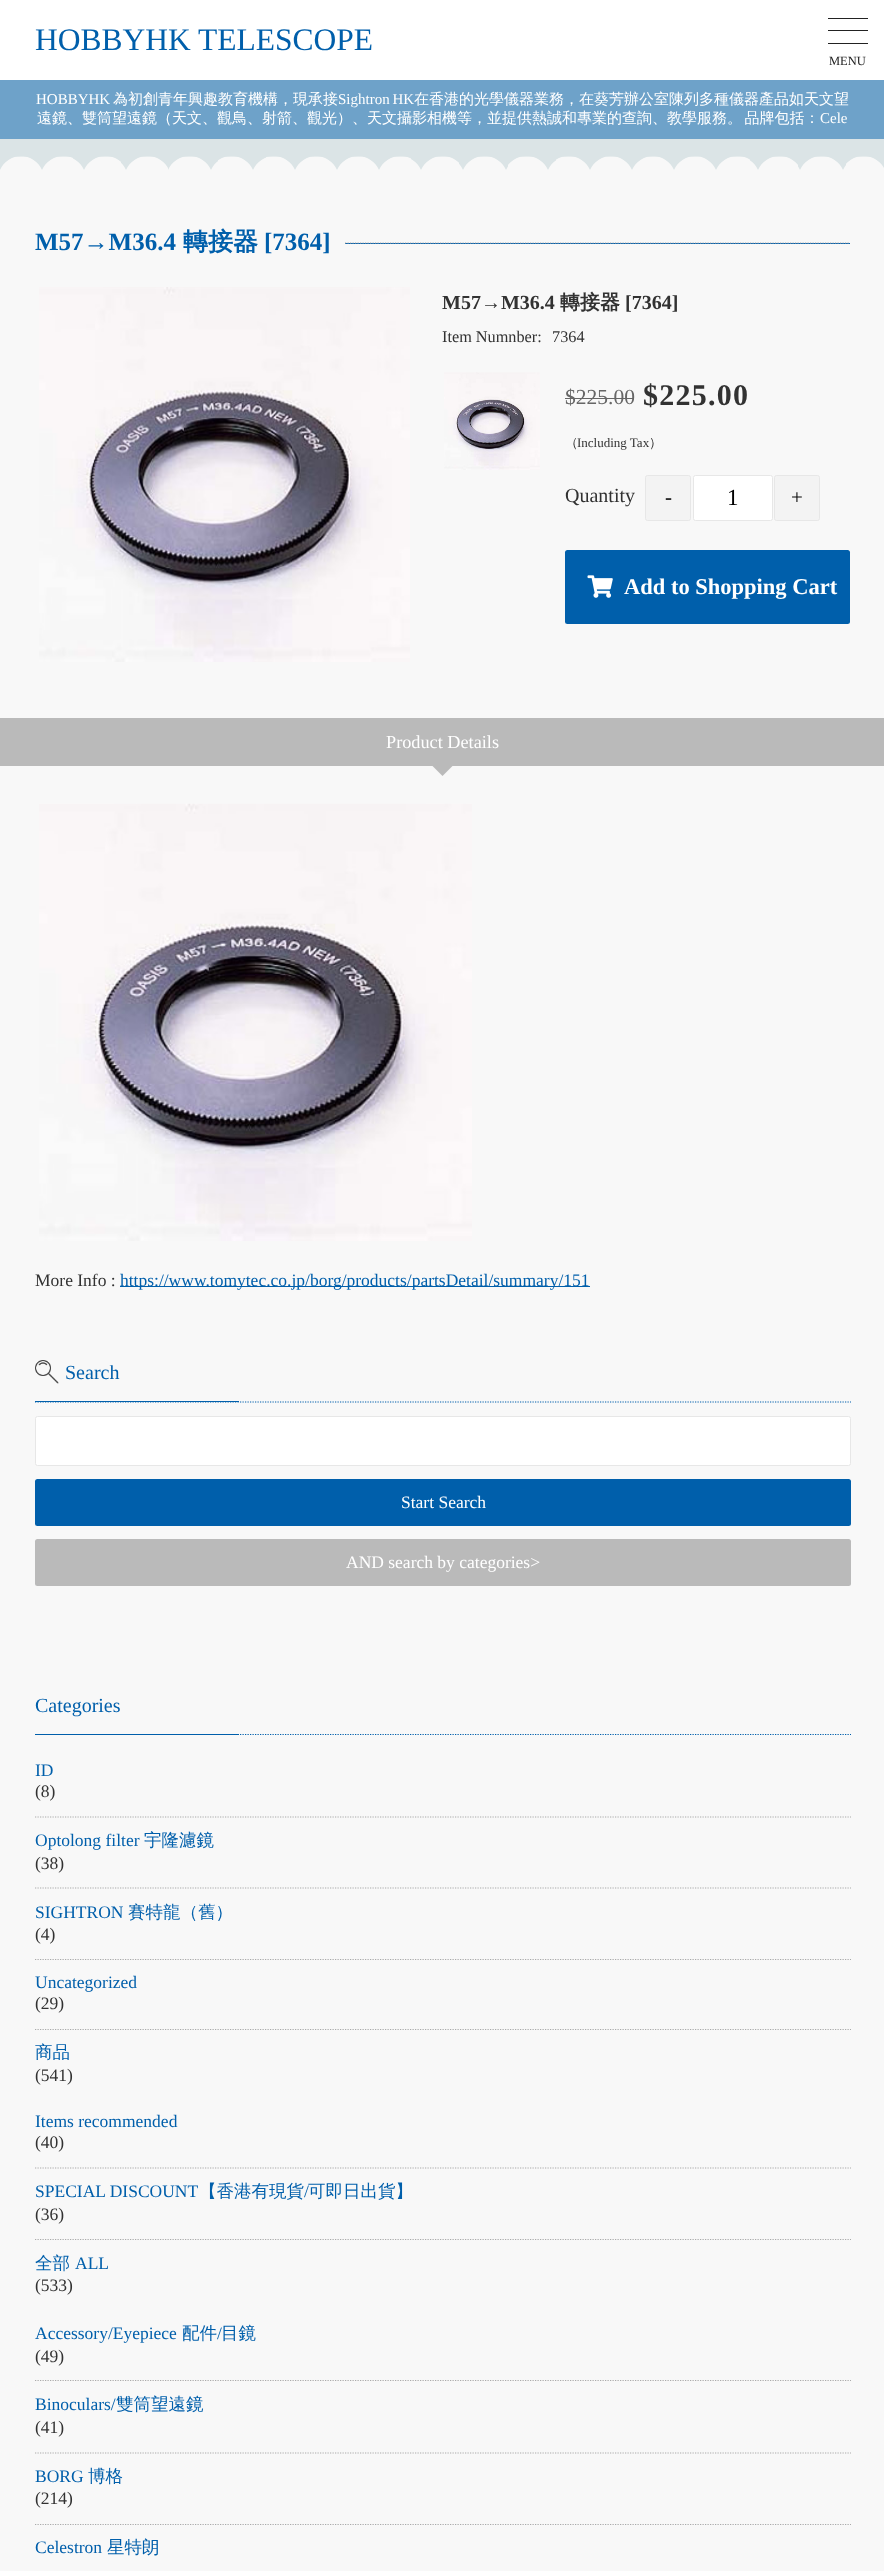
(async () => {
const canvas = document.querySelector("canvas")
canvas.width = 884
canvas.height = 2571
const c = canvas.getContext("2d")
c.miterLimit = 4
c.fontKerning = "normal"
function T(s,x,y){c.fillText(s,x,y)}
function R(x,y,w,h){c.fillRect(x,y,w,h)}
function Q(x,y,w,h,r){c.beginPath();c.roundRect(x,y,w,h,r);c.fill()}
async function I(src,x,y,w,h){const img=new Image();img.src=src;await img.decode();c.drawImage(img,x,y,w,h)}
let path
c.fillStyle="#dbe4e6"
R(0,0,884,2571)
c.fillStyle="#fff"
R(0,0,884,80)
c.font="31.5px Liberation Serif"
c.fillStyle="#005fab"
T("HOBBYHK TELESCOPE",35,50)
c.fillStyle="#6ea2c9"
R(0,80,884,59)
c.font="15px Liberation Serif"
c.fillStyle="#fff"
T("HOBBYHK",36,104)
c.font="500 15px WenQuanYi Zen Hei"
T("為初創青年興趣教育機構，現承接",113,104)
c.wordSpacing="-1px"
c.font="15px Liberation Serif"
T("Sightron HK",338,104)
c.wordSpacing="0px"
c.font="500 15px WenQuanYi Zen Hei"
T("在香港的光學儀器業務，在葵芳辦公室陳列多種儀器產品如天文望",414,104)
c.wordSpacing="-2px"
T("遠鏡、雙筒望遠鏡（天文、觀鳥、射箭、觀光）、天文攝影相機等，並提供熱誠和專業的查詢、教學服務。 品牌包括：",37,123)
c.wordSpacing="0px"
c.font="15px Liberation Serif"
T("Cele",820,123)
c.fillStyle="#f8f8f8"
R(0,170,884,2401)
await I("1.png",0,156,884,14)
c.font="bold 25px Liberation Serif"
c.fillStyle="#005fab"
T("M57→M36.4",35,250)
c.font="bold 25px WenQuanYi Zen Hei"
T("轉接器",183,250)
c.font="bold 25px Liberation Serif"
T("[7364]",264,250)
R(345,243,505,1)
c.save()
c.beginPath()
c.rect(35,225,815,33)
c.clip()
path = new Path2D("M345 243h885")
c.strokeStyle="#aaa"
c.lineWidth=1.2
c.setLineDash([1.25,1.25])
c.stroke(path)
c.restore()
await I("2.png",39,287,371,375)
c.font="bold 20px Liberation Serif"
c.fillStyle="#323232"
T("M57→M36.4",442,309)
c.font="bold 20px WenQuanYi Zen Hei"
T("轉接器",560,309)
c.font="bold 20px Liberation Serif"
T("[7364]",625,309)
c.font="16.25px Liberation Serif"
T("Item Numnber:",442,342)
T("7364",552,342)
await I("3.png",444,372,96,98)
c.font="21.5px Liberation Serif"
c.fillStyle="#666"
T("$225.00",565,404)
R(565,398,69,1)
c.letterSpacing="1.25px"
c.font="bold 30px Liberation Serif"
c.fillStyle="#323232"
T("$225.00",643,405)
c.letterSpacing="0px"
c.font="500 13px WenQuanYi Zen Hei"
T("（",565,447)
c.font="13px Liberation Serif"
T("Including Tax",577,447)
c.font="500 13px WenQuanYi Zen Hei"
T("）",649,447)
c.font="20px Liberation Serif"
T("Quantity",565,502)
c.fillStyle="#f3f3f3"
c.beginPath()
c.roundRect(645.5,475.5,45,45,2)
c.fill()
c.strokeStyle="#e7e7e7"
c.stroke()
c.font="21px Liberation Serif"
c.fillStyle="#000"
T("-",665,504)
c.fillStyle="#fff"
c.beginPath()
c.roundRect(693.5,475.5,79,45,2)
c.fill()
c.stroke()
c.font="23px Liberation Serif"
c.fillStyle="#000"
T("1",727,505)
c.fillStyle="#f3f3f3"
c.beginPath()
c.roundRect(774.5,475.5,45,45,2)
c.fill()
c.stroke()
c.font="21px Liberation Serif"
c.fillStyle="#000"
T("+",791,504)
c.fillStyle="#005fab"
Q(565,550,285,74,2.5)
await I("4.png",587,575,26,23)
c.font="bold 22.5px Liberation Serif"
c.fillStyle="#fff"
T("Add to Shopping Cart",624,594)
c.fillStyle="#bababa"
R(0,718,884,48)
c.font="18.25px Liberation Serif"
c.fillStyle="#fff"
T("Product Details",386,748)
c.fillStyle="#bababa"
path = new Path2D("M432.5 766h20l-10 10z")
c.fill(path)
await I("5.png",39,803,433,438)
c.font="17.5px Liberation Serif"
c.fillStyle="#323232"
T("More Info :",35,1286)
c.fillStyle="#005fab"
R(120,1286,470,1)
T("https://www.tomytec.co.jp/borg/products/partsDetail/summary/151",120,1286)
path = new Path2D("M35 1402h816")
c.strokeStyle="#005fab"
c.lineWidth=1.2
c.setLineDash([1.25,1.25])
c.stroke(path)
await I("6.png",35,1360,24,24)
c.font="20px Liberation Serif"
T("Search",65,1379)
R(35,1401,204,1)
c.fillStyle="#fff"
c.beginPath()
c.roundRect(35.5,1416.5,815,49,2)
c.fill()
c.strokeStyle="#e7e7e7"
c.lineWidth=1
c.setLineDash([])
c.stroke()
c.fillStyle="#005fab"
Q(35,1479,816,47,2.5)
c.font="17.5px Liberation Serif"
c.fillStyle="#fff"
T("Start Search",401,1508)
c.fillStyle="#bababa"
Q(35,1539,816,47,2.5)
c.fillStyle="#fff"
T("AND search by categories>",346,1568)
path = new Path2D("M35 1734.5h816")
c.strokeStyle="#005fab"
c.lineWidth=1.2
c.setLineDash([1.25,1.25])
c.stroke(path)
c.font="20px Liberation Serif"
c.fillStyle="#005fab"
T("Categories",35,1712)
R(35,1734,204,1)
c.font="17.5px Liberation Serif"
T("ID",35,1776)
c.fillStyle="#323232"
T("(8)",35,1797)
path = new Path2D("M35 1817h816")
c.strokeStyle="#aaa"
c.stroke(path)
c.fillStyle="#005fab"
T("Optolong filter",35,1846)
c.font="500 17.5px WenQuanYi Zen Hei"
T("宇隆濾鏡",144,1846)
c.font="17.5px Liberation Serif"
c.fillStyle="#323232"
T("(38)",35,1869)
path = new Path2D("M35 1888h816")
c.stroke(path)
c.fillStyle="#005fab"
T("SIGHTRON",35,1918)
c.font="500 17.5px WenQuanYi Zen Hei"
T("賽特龍（舊）",128,1918)
c.font="17.5px Liberation Serif"
c.fillStyle="#323232"
T("(4)",35,1940)
path = new Path2D("M35 1959.5h816")
c.stroke(path)
c.fillStyle="#005fab"
T("Uncategorized",35,1988)
c.fillStyle="#323232"
T("(29)",35,2009)
path = new Path2D("M35 2029.5h816")
c.stroke(path)
c.font="500 17.5px WenQuanYi Zen Hei"
c.fillStyle="#005fab"
T("商品",35,2058)
c.font="17.5px Liberation Serif"
c.fillStyle="#323232"
T("(541)",35,2081)
c.fillStyle="#005fab"
T("Items recommended",35,2127)
c.fillStyle="#323232"
T("(40)",35,2148)
path = new Path2D("M35 2168h816")
c.stroke(path)
c.fillStyle="#005fab"
T("SPECIAL DISCOUNT",35,2197)
c.font="500 17.5px WenQuanYi Zen Hei"
T("【香港有現貨",199,2197)
c.font="17.5px Liberation Serif"
T("/",304,2197)
c.font="500 17.5px WenQuanYi Zen Hei"
T("可即日出貨】",308,2197)
c.font="17.5px Liberation Serif"
c.fillStyle="#323232"
T("(36)",35,2220)
path = new Path2D("M35 2239.5h816")
c.stroke(path)
c.font="500 17.5px WenQuanYi Zen Hei"
c.fillStyle="#005fab"
T("全部",35,2269)
c.font="17.5px Liberation Serif"
T("ALL",75,2269)
c.fillStyle="#323232"
T("(533)",35,2291)
c.fillStyle="#005fab"
T("Accessory/Eyepiece",35,2339)
c.font="500 17.5px WenQuanYi Zen Hei"
T("配件",182,2339)
c.font="17.5px Liberation Serif"
T("/",217,2339)
c.font="500 17.5px WenQuanYi Zen Hei"
T("目鏡",221,2339)
c.font="17.5px Liberation Serif"
c.fillStyle="#323232"
T("(49)",35,2362)
path = new Path2D("M35 2380.5h816")
c.stroke(path)
c.fillStyle="#005fab"
T("Binoculars/",35,2410)
c.font="500 17.5px WenQuanYi Zen Hei"
T("雙筒望遠鏡",116,2410)
c.font="17.5px Liberation Serif"
c.fillStyle="#323232"
T("(41)",35,2433)
path = new Path2D("M35 2453h816")
c.stroke(path)
c.fillStyle="#005fab"
T("BORG",35,2482)
c.font="500 17.5px WenQuanYi Zen Hei"
T("博格",88,2482)
c.font="17.5px Liberation Serif"
c.fillStyle="#323232"
T("(214)",35,2504)
path = new Path2D("M35 2524.5h816")
c.stroke(path)
c.fillStyle="#005fab"
T("Celestron",35,2553)
c.font="500 17.5px WenQuanYi Zen Hei"
T("星特朗",107,2553)
c.fillStyle="#222"
R(828,18,40,1)
R(828,30,40,1)
R(828,43,40,1)
c.font="12.5px Liberation Serif"
T("MENU",829,65)
})()
